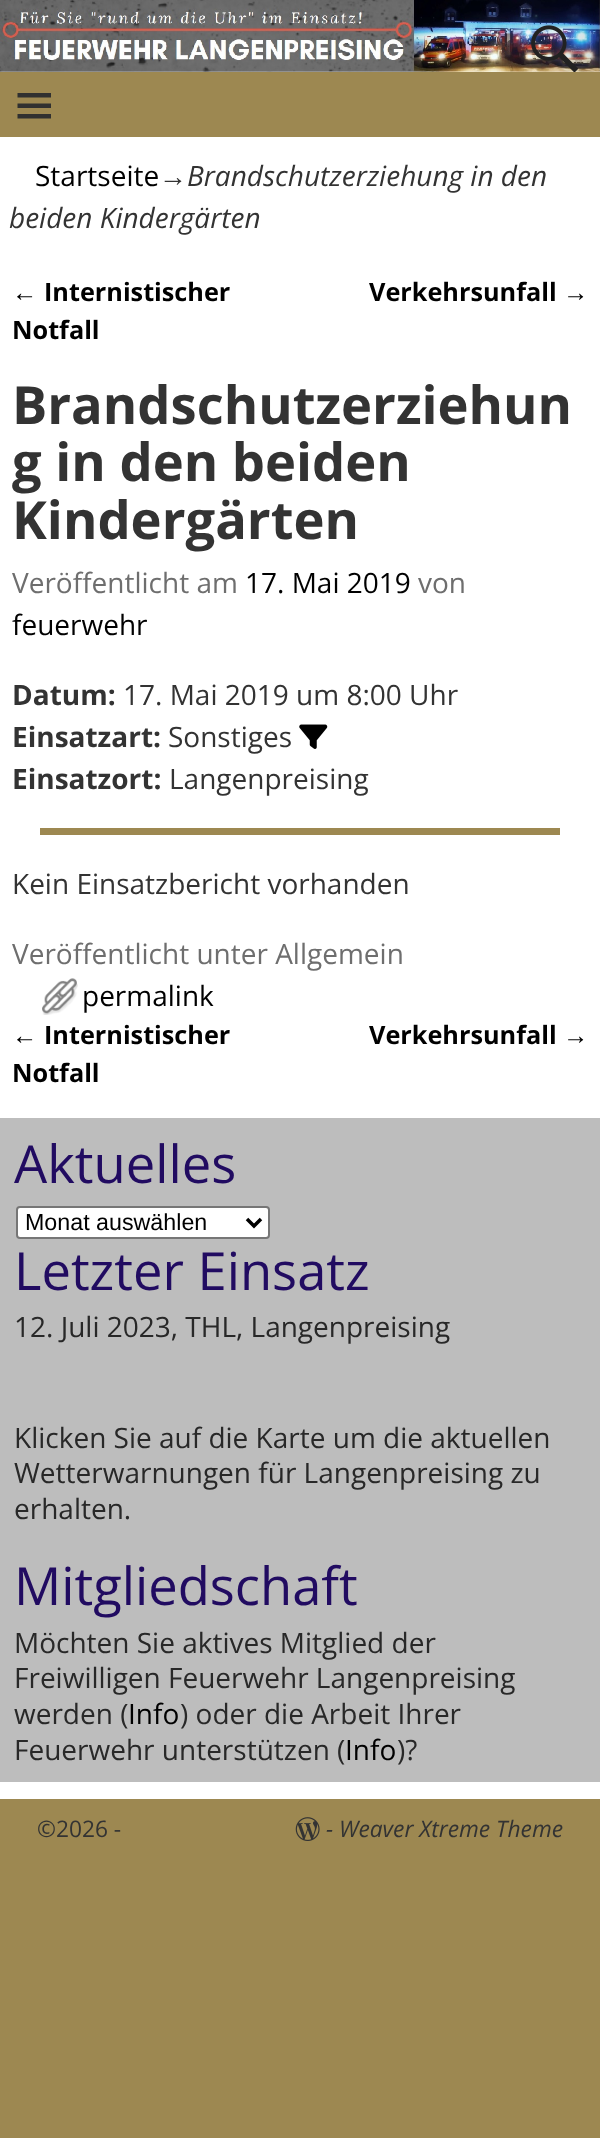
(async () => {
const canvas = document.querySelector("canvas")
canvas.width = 600
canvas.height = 2138
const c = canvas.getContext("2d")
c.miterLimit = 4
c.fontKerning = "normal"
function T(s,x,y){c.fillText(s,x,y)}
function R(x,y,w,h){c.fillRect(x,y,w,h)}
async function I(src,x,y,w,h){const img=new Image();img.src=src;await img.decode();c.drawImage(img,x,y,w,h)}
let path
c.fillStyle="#9d8851"
R(0,0,600,2138)
c.fillStyle="#fff"
R(0,71,600,1728)
await I("1.png",0,0,600,72)
await I("2.png",531,25,48,47)
c.fillStyle="#9d8851"
R(0,72,600,65)
c.fillStyle="#303030"
path = new Path2D("M17.5 118.5v-4.5h33.5v4.5zm0-25.5h33.5v4.5h-33.5zm0 15v-4.5h33.5v4.5z")
c.fill(path)
c.font="28px Open Sans"
c.fillStyle="#000"
T("Startseite",35,186)
c.font="28px Liberation Sans"
c.fillStyle="#333"
T("→",159,186)
c.font="italic 28px Open Sans"
T("Brandschutzerziehung in den",187,186)
T("beiden Kindergärten",9,228)
c.font="25.25px Liberation Sans"
c.fillStyle="#000"
T("←",12,301)
c.font="bold 25.25px Open Sans"
T("Internistischer",44,301)
T("Notfall",12,339)
T("Verkehrsunfall",369,301)
c.font="25.25px Liberation Sans"
T("→",563,301)
c.font="bold 52.5px Open Sans"
c.fillStyle="#333"
T("Brandschutzerziehun",12,424)
T("g in den beiden",12,481)
T("Kindergärten",12,539)
c.font="28px Open Sans"
c.fillStyle="#6e6e6e"
T("Veröffentlicht am",12,593)
c.fillStyle="#000"
T("17. Mai 2019",245,593)
c.fillStyle="#6e6e6e"
T("von",418,593)
c.fillStyle="#000"
T("feuerwehr",12,635)
c.font="bold 28px Open Sans"
c.fillStyle="#333"
T("Datum:",12,705)
c.font="28px Open Sans"
T("17. Mai 2019 um 8:00 Uhr",123,705)
c.font="bold 28px Open Sans"
T("Einsatzart:",12,747)
c.font="28px Open Sans"
T("Sonstiges",168,747)
await I("3.png",299,724,29,25)
c.font="bold 28px Open Sans"
T("Einsatzort:",12,789)
c.font="28px Open Sans"
T("Langenpreising",169,789)
c.fillStyle="#9d8851"
R(40,828,520,7)
c.fillStyle="#333"
T("Kein Einsatzbericht vorhanden",12,894)
c.fillStyle="#6e6e6e"
T("Veröffentlicht unter Allgemein",12,964)
await I("4.png",42,978,36,37)
c.fillStyle="#000"
T("permalink",82,1006)
c.font="25.25px Liberation Sans"
T("←",12,1044)
c.font="bold 25.25px Open Sans"
T("Internistischer",44,1044)
T("Notfall",12,1082)
T("Verkehrsunfall",369,1044)
c.font="25.25px Liberation Sans"
T("→",563,1044)
c.fillStyle="#bdbdbd"
R(0,1118,600,664)
c.font="52.5px Open Sans"
c.fillStyle="#210b61"
T("Aktuelles",14,1183)
c.fillStyle="#fff"
c.beginPath()
c.roundRect(17,1207,252,31,3)
c.fill()
c.strokeStyle="#767676"
c.lineWidth=2
c.stroke()
path = new Path2D("M247 1219l7 7l7-7")
c.strokeStyle="#000"
c.lineWidth=3.5
c.stroke(path)
c.font="23.25px Liberation Sans"
c.fillStyle="#000"
T("Monat auswählen",25,1230)
c.font="52.5px Open Sans"
c.fillStyle="#210b61"
T("Letzter Einsatz",14,1290)
c.font="28px Open Sans"
c.fillStyle="#282828"
T("12. Juli 2023, THL, Langenpreising",14,1337)
T("Klicken Sie auf die Karte um die aktuellen",14,1448)
T("Wetterwarnungen für Langenpreising zu",14,1483)
T("erhalten.",14,1519)
c.font="52.5px Open Sans"
c.fillStyle="#210b61"
T("Mitgliedschaft",14,1605)
c.font="28px Open Sans"
c.fillStyle="#282828"
T("Möchten Sie aktives Mitglied der",14,1653)
T("Freiwilligen Feuerwehr Langenpreising",14,1688)
T("werden (",14,1724)
c.fillStyle="#000"
T("Info",128,1724)
c.fillStyle="#282828"
T(") oder die Arbeit Ihrer",180,1724)
T("Feuerwehr unterstützen (",14,1760)
c.fillStyle="#000"
T("Info",345,1760)
c.fillStyle="#282828"
T(")?",397,1760)
c.font="22.75px Open Sans"
c.fillStyle="#333"
T("©2026 -",37,1837)
await I("5.png",295,1817,25,24)
c.font="italic 22.75px Open Sans"
T("- Weaver Xtreme Theme",326,1837)
})()
